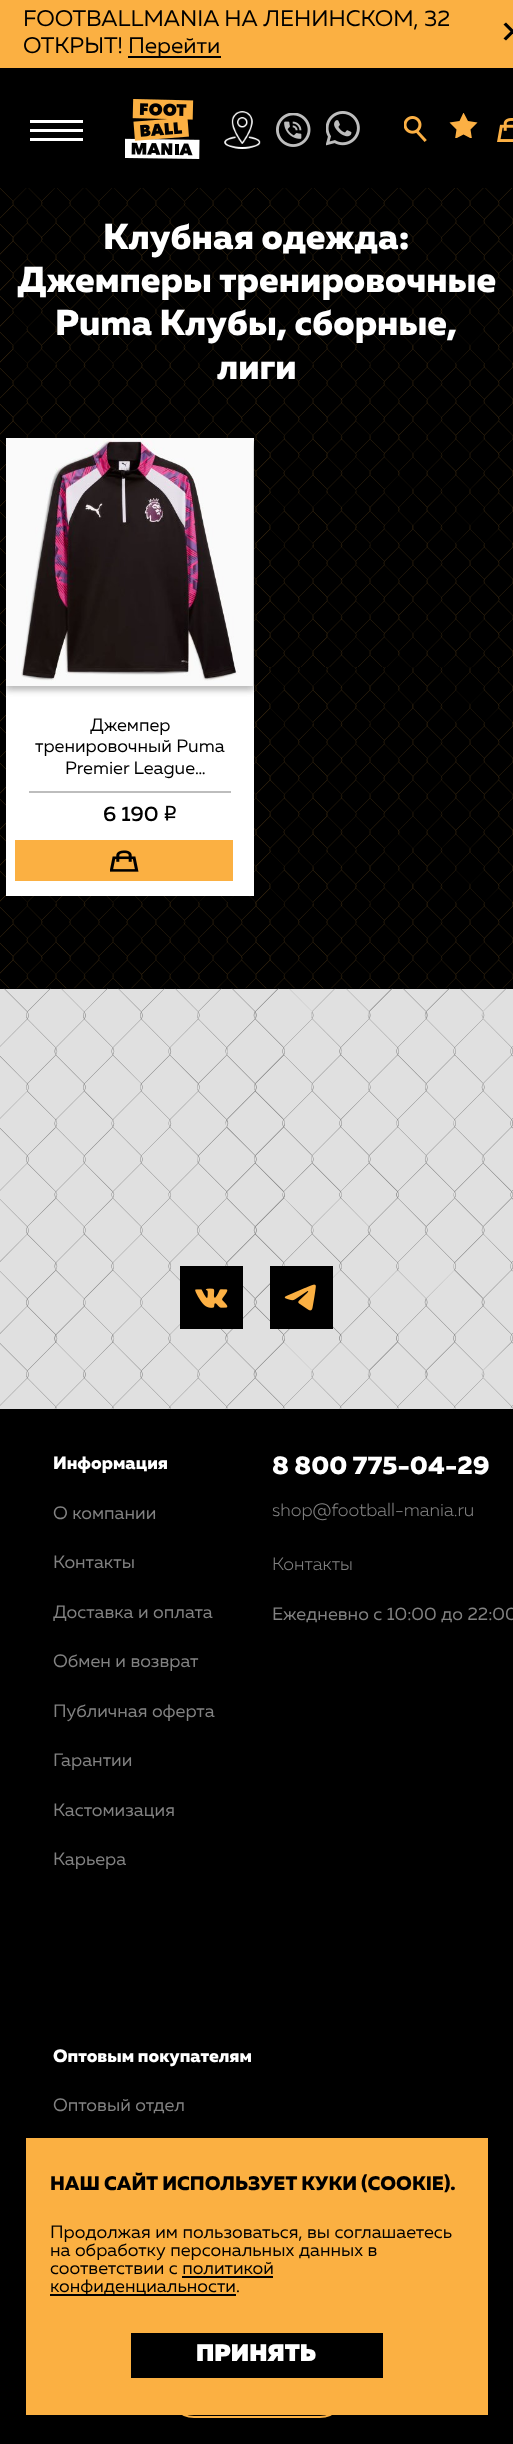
(async () => {
const canvas = document.querySelector("canvas")
canvas.width = 513
canvas.height = 2444
const c = canvas.getContext("2d")
c.miterLimit = 4
c.fontKerning = "normal"
function T(s,x,y){c.fillText(s,x,y)}
function R(x,y,w,h){c.fillRect(x,y,w,h)}
async function I(src,x,y,w,h){const img=new Image();img.src=src;await img.decode();c.drawImage(img,x,y,w,h)}
let path
c.fillStyle="#000"
R(0,0,513,2444)
c.fillStyle="#fbb042"
R(0,0,513,68)
c.font="22.5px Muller"
c.fillStyle="#000"
T("FOOTBALLMANIA НА ЛЕНИНСКОМ, 32",23,26)
T("ОТКРЫТ!",23,53)
R(128,56,93,2)
T("Перейти",128,53)
path = new Path2D("M503.5 38.5l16-16l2.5 2l-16 16z")
c.fill(path)
path = new Path2D("M506 22.5l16 16l-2.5 2l-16-16z")
c.fill(path)
c.fillStyle="#fff"
R(30,129,53,3)
R(30,120,53,3)
R(30,138,53,3)
await I("1.png",125,99,75,60)
await I("2.png",224,111,37,38)
await I("3.png",276,113,35,34)
await I("4.png",326,111,34,35)
await I("5.png",404,116,23,26)
c.save()
c.beginPath()
c.rect(449,113,30,25)
c.clip()
c.fillStyle="#fcb044"
path = new Path2D("M463.5 112.5l4.5 8.5l9.5 1.5l-7 7l1.5 9.5l-8.5-4.5l-8.5 4.5l1.5-9.5l-7-7l10-1.5z")
c.fill(path)
c.restore()
await I("6.png",497,118,16,24)
await I("7.png",0,188,513,801)
c.font="800 36px Muller"
T("Клубная одежда:",103,249)
T("Джемперы тренировочные",17,292)
T("Puma Клубы, сборные,",55,335)
T("лиги",217,379)
R(6,438,248,458)
c.fillStyle="#00000026"
c.filter="blur(3px)"
c.beginPath()
c.rect(6,443,248,247)
c.fill()
c.filter="none"
c.filter="blur(3px)"
c.beginPath()
c.rect(6,443,248,247)
c.fill()
c.filter="none"
await I("8.png",6,438,247,248)
c.font="18px Muller"
c.fillStyle="#000"
T("Джемпер",90,731)
T("тренировочный Puma",35,752)
T("Premier League…",65,774)
c.fillStyle="#bdbdbd"
R(29,791,202,2)
c.font="500 21px Muller"
c.fillStyle="#000"
T("6 190",103,821)
await I("9.png",164,805,12,16)
c.fillStyle="#fbb042"
R(15,840,218,41)
await I("10.png",110,850,29,22)
c.beginPath()
c.roundRect(168,2365,178,52,26)
c.strokeStyle="#fbb042"
c.lineWidth=2
c.stroke()
c.fillStyle="#e0e0e0"
R(0,989,513,420)
await I("11.png",0,988,513,421)
c.fillStyle="#000"
R(180,1266,63,63)
await I("12.png",195,1288,33,20)
R(270,1266,63,63)
await I("13.png",284,1284,32,27)
c.font="800 18px Muller"
c.fillStyle="#fff"
T("Информация",53,1469)
c.font="18px Muller"
c.fillStyle="#828282"
T("О компании",53,1519)
T("Контакты",53,1568)
T("Доставка и оплата",53,1618)
T("Обмен и возврат",53,1667)
T("Публичная оферта",53,1717)
T("Гарантии",53,1766)
T("Кастомизация",53,1816)
T("Карьера",53,1865)
c.font="800 18px Muller"
c.fillStyle="#fff"
T("Оптовым покупателям",53,2062)
c.font="18px Muller"
c.fillStyle="#828282"
T("Оптовый отдел",53,2111)
c.font="800 25.5px Muller"
c.fillStyle="#fff"
T("8 800 775-04-29",272,1474)
c.font="300 18px Muller"
c.fillStyle="#828282"
T("shop@football-mania.ru",272,1516)
T("Контакты",272,1570)
c.font="18px Muller"
T("Ежедневно с 10:00 до 22:00",272,1620)
c.fillStyle="#fbb042"
R(26,2138,462,277)
c.font="800 19.5px Muller"
c.fillStyle="#000"
T("НАШ САЙТ ИСПОЛЬЗУЕТ КУКИ (COOKIE).",50,2190)
c.font="18px Muller"
T("Продолжая им пользоваться, вы соглашаетесь",50,2238)
T("на обработку персональных данных в",50,2256)
T("соответствии с политикой",50,2274)
R(50,2294,186,2)
T("конфиденциальности.",50,2292)
R(182,2276,91,2)
R(131,2333,252,45)
c.font="900 24px Muller"
c.fillStyle="#fff"
T("ПРИНЯТЬ",196,2361)
})()
